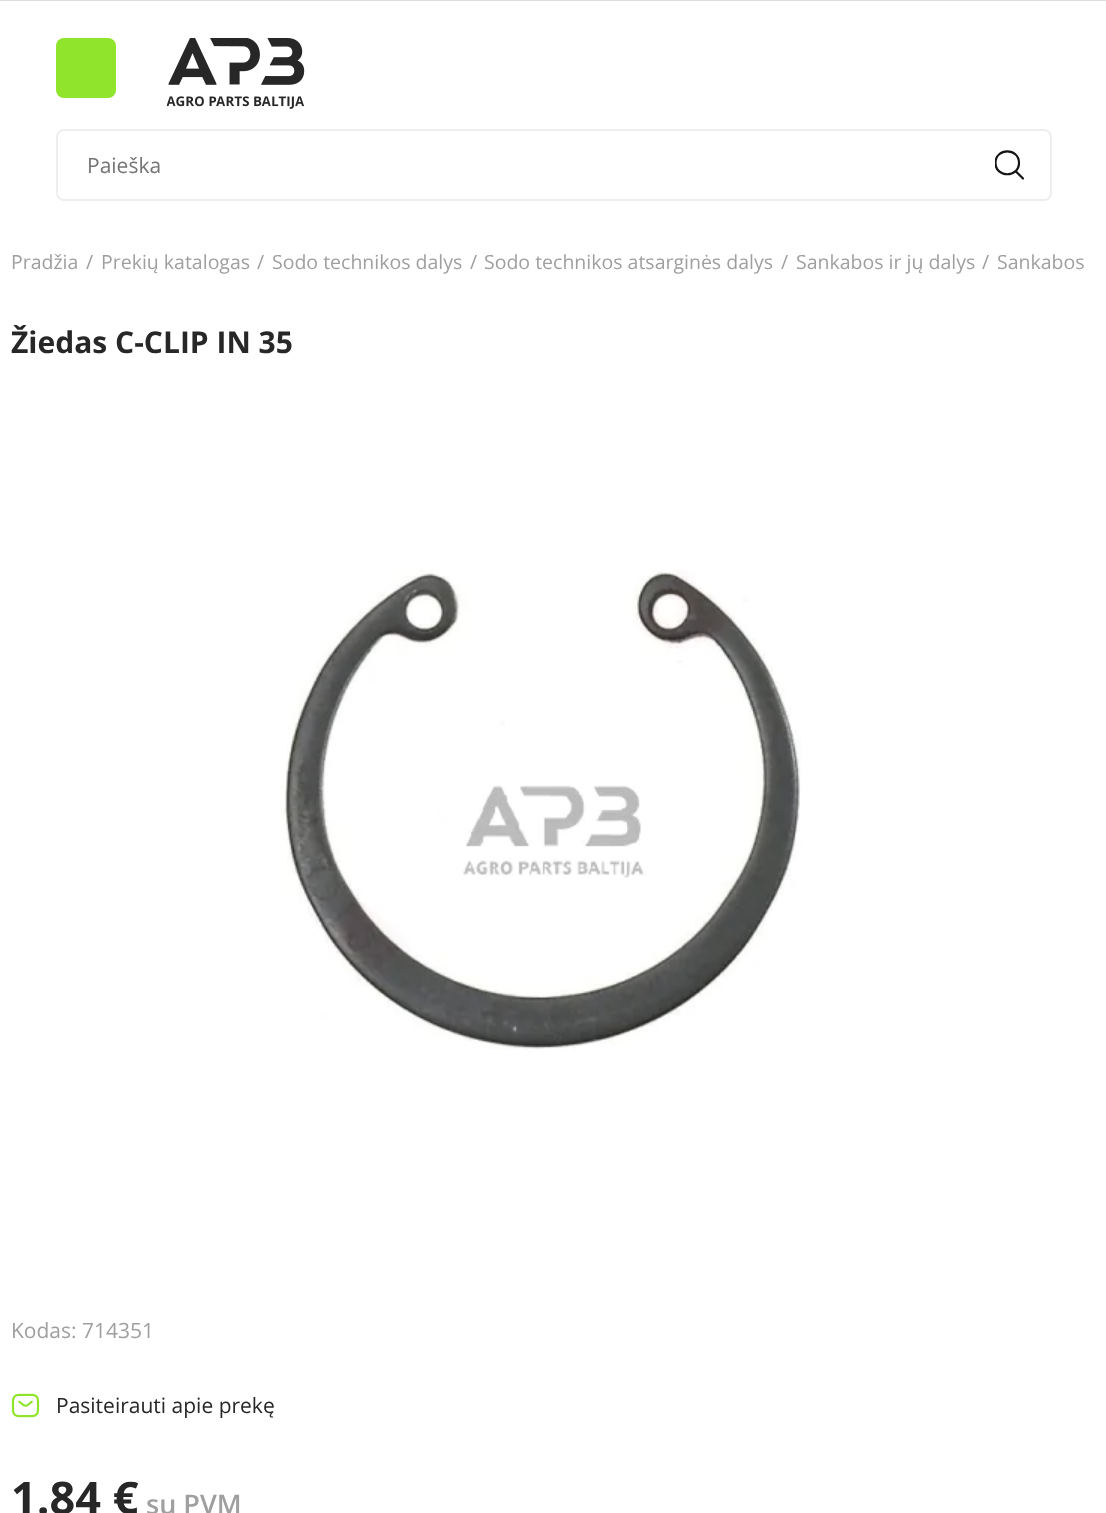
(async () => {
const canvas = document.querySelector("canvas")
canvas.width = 1106
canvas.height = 1513
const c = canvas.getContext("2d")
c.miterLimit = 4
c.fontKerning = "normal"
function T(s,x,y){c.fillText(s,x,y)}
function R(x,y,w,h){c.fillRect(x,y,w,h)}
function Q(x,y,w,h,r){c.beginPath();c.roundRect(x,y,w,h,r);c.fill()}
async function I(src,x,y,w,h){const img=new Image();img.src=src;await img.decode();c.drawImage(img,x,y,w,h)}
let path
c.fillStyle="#fff"
R(0,0,1106,1513)
c.fillStyle="#90e52c"
Q(56,38,60,60,8)
await I("1.png",167,38,138,71)
c.beginPath()
c.roundRect(57,130,994,70,7)
c.strokeStyle="#eee"
c.lineWidth=2
c.stroke()
c.font="21px Open Sans"
c.fillStyle="#757575"
T("Paieška",87,173)
c.save()
c.beginPath()
c.rect(995,150,30,30)
c.clip()
path = new Path2D("M1019 163c0 15-23.5 15-23.5 0c0-15.5 23.5-15.5 23.5 0z")
c.strokeStyle="#141414"
c.lineWidth=2.2
c.lineCap="round"
c.stroke(path)
c.restore()
path = new Path2D("M1016 171.5l7 7")
c.strokeStyle="#141414"
c.lineWidth=2.2
c.lineCap="round"
c.stroke(path)
c.fillStyle="#ddd"
R(0,0,1106,1)
c.font="19.5px Open Sans"
c.fillStyle="#9f9f9f"
T("Pradžia",11,269)
T("/",86,269)
T("Prekių katalogas",101,269)
T("/",257,269)
T("Sodo technikos dalys",272,269)
T("/",470,269)
T("Sodo technikos atsarginės dalys",484,269)
T("/",781,269)
T("Sankabos ir jų dalys",796,269)
T("/",982,269)
T("Sankabos",997,269)
c.font="bold 30px Open Sans"
c.fillStyle="#272727"
T("Žiedas C-CLIP IN 35",11,353)
await I("2.png",280,570,522,480)
c.font="21px Open Sans"
c.fillStyle="#9f9f9f"
T("Kodas: 714351",11,1338)
await I("3.png",11,1393,29,25)
c.fillStyle="#272727"
T("Pasiteirauti apie prekę",56,1413)
c.font="bold 45px Open Sans"
T("1.84 €",11,1514)
c.font="600 27px Open Sans"
c.fillStyle="#9f9f9f"
T("su PVM",146,1514)
})()
